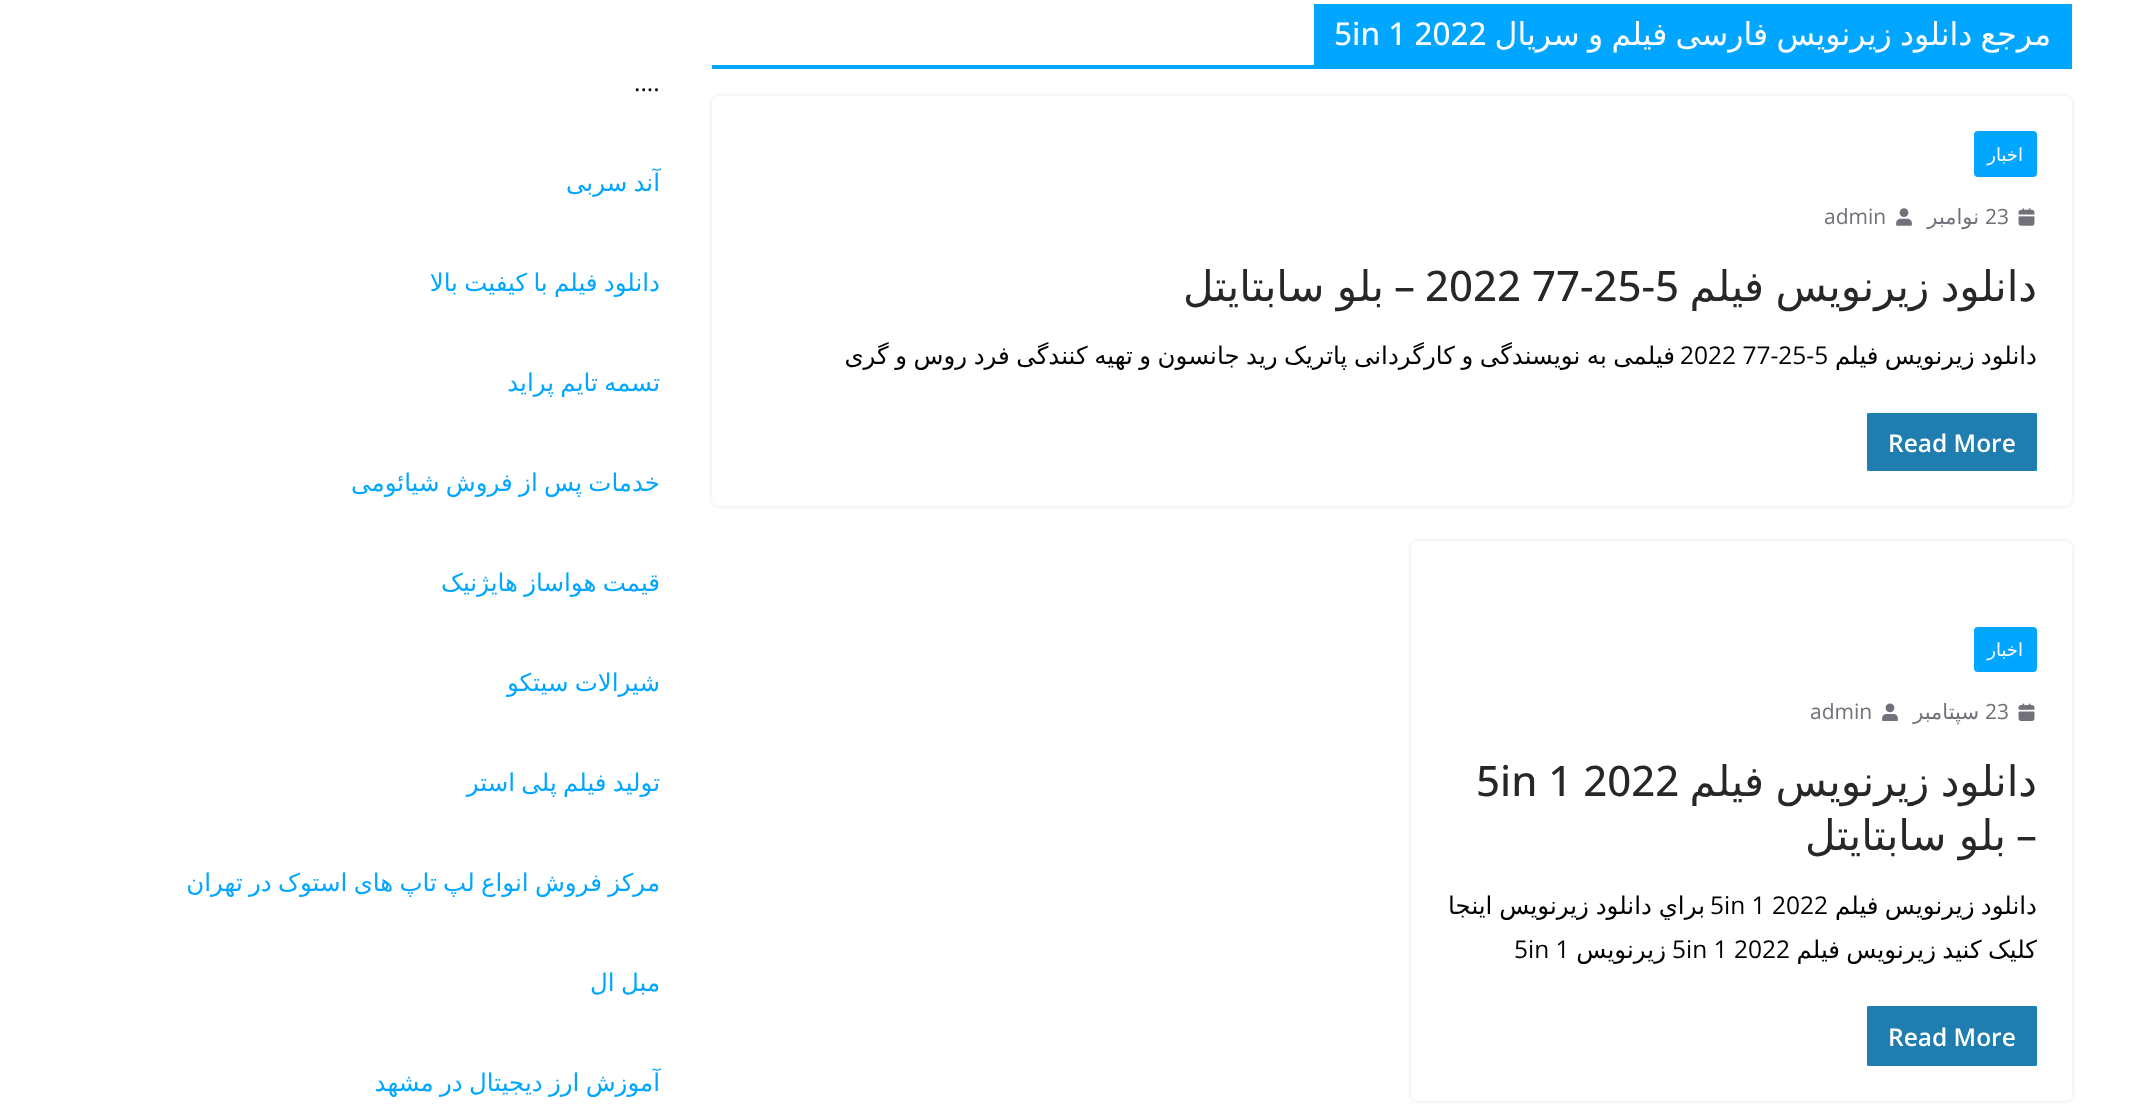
(async () => {
const canvas = document.querySelector("canvas")
canvas.width = 2149
canvas.height = 1106
const c = canvas.getContext("2d")
c.miterLimit = 4
c.fontKerning = "normal"
function T(s,x,y){c.fillText(s,x,y)}
function R(x,y,w,h){c.fillRect(x,y,w,h)}
function Q(x,y,w,h,r){c.beginPath();c.roundRect(x,y,w,h,r);c.fill()}
async function I(src,x,y,w,h){const img=new Image();img.src=src;await img.decode();c.drawImage(img,x,y,w,h)}
let path
c.fillStyle="#fff"
R(0,0,2149,1106)
c.fillStyle="#00a6ff"
R(712,65,1360,4)
R(1314,4,758,61)
c.wordSpacing="-1.75px"
c.direction="rtl"
c.font="31.5px DejaVu Sans"
c.fillStyle="#fff"
T("مرجع دانلود زیرنویس فارسی فیلم و سریال",2051,45)
c.wordSpacing="0px"
c.direction="ltr"
c.font="500 31.5px Open Sans"
T("5in 1 2022",1334,45)
c.save()
path = new Path2D("M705 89h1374v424h-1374zm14 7h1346c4 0 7 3 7 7v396c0 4-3 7-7 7h-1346c-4 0-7-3-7-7v-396c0-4 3-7 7-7z")
c.clip(path,"evenodd")
c.fillStyle="#e4e4e7"
c.filter="blur(2px)"
c.beginPath()
c.roundRect(712,96,1360,410,7)
c.fill()
c.filter="none"
c.restore()
c.fillStyle="#00a6ff"
Q(1974,131,63,46,4)
c.direction="rtl"
c.font="18px DejaVu Sans"
c.fillStyle="#fff"
T("اخبار",2023,161)
await I("1.png",2018,208,17,18)
c.direction="ltr"
c.font="21px Open Sans"
c.fillStyle="#71717a"
T("23",1985,224)
c.direction="rtl"
c.font="21px DejaVu Sans"
T("نوامبر",1979,224)
await I("2.png",1896,208,16,18)
c.direction="ltr"
c.font="21px Open Sans"
T("admin",1824,224)
c.wordSpacing="-2px"
c.direction="rtl"
c.font="42px DejaVu Sans"
c.fillStyle="#27272a"
T("دانلود زیرنویس فیلم",2037,301)
c.wordSpacing="0px"
c.direction="ltr"
c.font="500 42px Open Sans"
T("2022 77-25-5",1425,301)
c.direction="rtl"
T("–",1415,301)
c.wordSpacing="-1px"
c.font="42px DejaVu Sans"
T("بلو سابتايتل",1384,301)
c.wordSpacing="-1.5px"
c.font="24.5px DejaVu Sans"
c.fillStyle="#000"
T("دانلود زیرنویس فیلم",2037,364)
c.wordSpacing="-1.3px"
T("فیلمی به نویسندگی و کارگردانی پاتریک رید جانسون و تهیه کنندگی فرد روس و گری",1675,364)
c.wordSpacing="0px"
c.direction="ltr"
c.font="24.5px Open Sans"
T("2022 77-25-5",1680,364)
c.fillStyle="#00a6ff"
R(1867,413,170,58)
c.fillStyle="#207daf"
Q(1867,413,170,58,4)
c.font="600 24.5px Open Sans"
c.fillStyle="#fff"
T("Read More",1888,452)
c.save()
path = new Path2D("M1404 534h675v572h-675zm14 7h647c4 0 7 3 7 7v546c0 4-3 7-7 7h-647c-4 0-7-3-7-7v-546c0-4 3-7 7-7z")
c.clip(path,"evenodd")
c.fillStyle="#e4e4e7"
c.filter="blur(2px)"
c.beginPath()
c.roundRect(1411,541,661,560,7)
c.fill()
c.filter="none"
c.restore()
c.fillStyle="#00a6ff"
Q(1974,627,63,45,4)
c.direction="rtl"
c.font="18px DejaVu Sans"
c.fillStyle="#fff"
T("اخبار",2023,656)
await I("3.png",2018,703,17,18)
c.direction="ltr"
c.font="21px Open Sans"
c.fillStyle="#71717a"
T("23",1985,719)
c.direction="rtl"
c.font="21px DejaVu Sans"
T("سپتامبر",1979,719)
await I("4.png",1882,703,16,18)
c.direction="ltr"
c.font="21px Open Sans"
T("admin",1810,719)
c.wordSpacing="-2px"
c.direction="rtl"
c.font="42px DejaVu Sans"
c.fillStyle="#27272a"
T("دانلود زیرنویس فیلم",2037,796)
c.wordSpacing="0px"
c.direction="ltr"
c.font="500 42px Open Sans"
T("5in 1 2022",1476,796)
c.direction="rtl"
T("–",2037,850)
c.wordSpacing="-1px"
c.font="42px DejaVu Sans"
T("بلو سابتايتل",2006,850)
c.wordSpacing="-1.5px"
c.font="24.5px DejaVu Sans"
c.fillStyle="#000"
T("دانلود زیرنویس فیلم",2037,914)
c.wordSpacing="0px"
c.direction="ltr"
c.font="24.5px Open Sans"
T("5in 1 2022",1710,914)
c.wordSpacing="-1px"
c.direction="rtl"
c.font="24.5px DejaVu Sans"
T("براي دانلود زيرنويس اينجا",1705,914)
c.wordSpacing="-1.5px"
T("کليک کنيد زیرنویس فیلم",2037,958)
c.wordSpacing="0px"
c.direction="ltr"
c.font="24.5px Open Sans"
T("5in 1 2022",1672,958)
c.direction="rtl"
c.font="24.5px DejaVu Sans"
T("زیرنویس",1666,958)
c.direction="ltr"
c.font="24.5px Open Sans"
T("5in 1",1514,958)
c.fillStyle="#00a6ff"
R(1867,1006,170,60)
c.fillStyle="#207daf"
Q(1867,1006,170,60,4)
c.font="600 24.5px Open Sans"
c.fillStyle="#fff"
T("Read More",1888,1046)
c.font="24.5px Open Sans"
c.fillStyle="#000"
T("....",634,91)
c.wordSpacing="-1.5px"
c.direction="rtl"
c.font="24.5px DejaVu Sans"
c.fillStyle="#00a6ff"
T("آند سربی",660,191)
T("دانلود فيلم با کيفيت بالا",660,291)
T("تسمه تایم پراید",660,391)
T("خدمات پس از فروش شیائومی",660,491)
T("قیمت هواساز هایژنیک",660,591)
T("شیرالات سیتکو",660,691)
T("تولید فیلم پلی استر",660,791)
T("مرکز فروش انواع لپ تاپ های استوک در تهران",660,891)
T("مبل ال",660,991)
T("آموزش ارز دیجیتال در مشهد",660,1091)
})()
